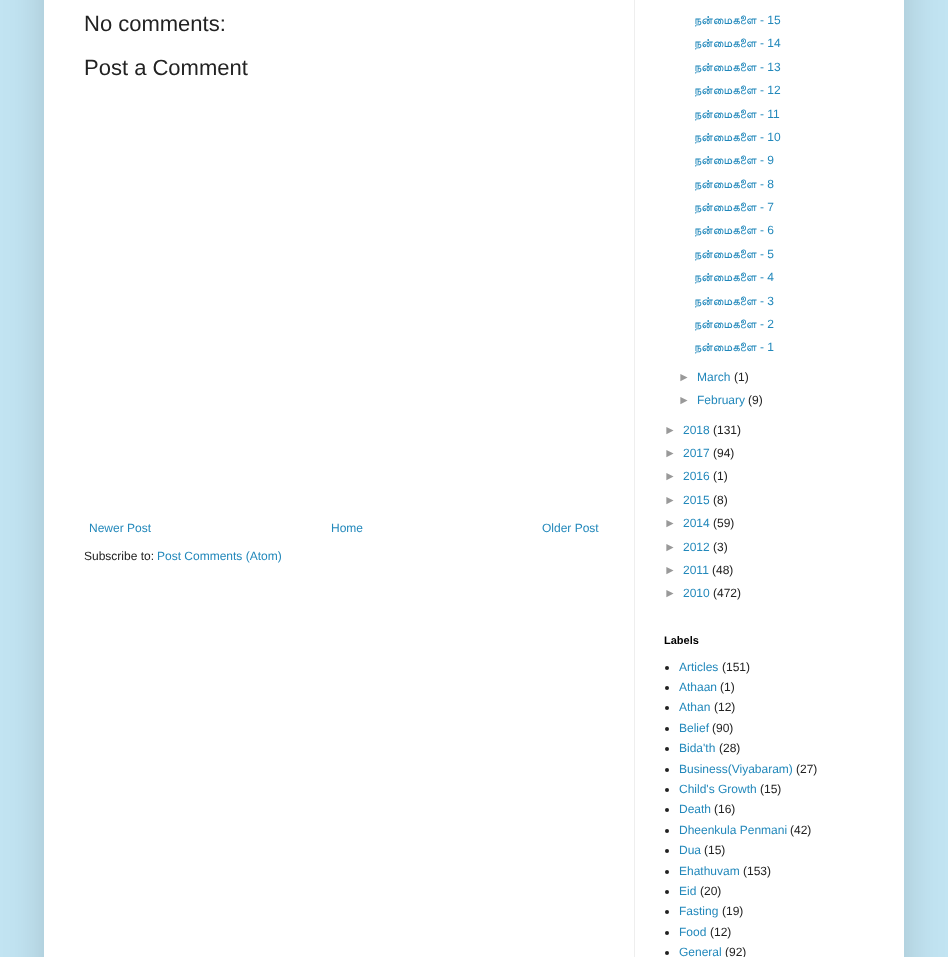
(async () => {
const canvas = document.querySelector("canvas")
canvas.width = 948
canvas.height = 957
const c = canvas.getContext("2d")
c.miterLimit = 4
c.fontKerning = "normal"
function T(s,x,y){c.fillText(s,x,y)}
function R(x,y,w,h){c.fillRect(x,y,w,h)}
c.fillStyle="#c2e4f2"
R(0,0,948,957)
c.fillStyle="#00000026"
c.filter="blur(20px)"
c.beginPath()
c.rect(44,-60,860,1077)
c.fill()
c.filter="none"
c.fillStyle="#fff"
R(44,0,860,957)
c.fillStyle="#eee"
R(634,0,1,957)
c.font="22px Liberation Sans"
c.fillStyle="#222"
T("No comments:",84,31)
T("Post a Comment",84,75)
c.font="12px Liberation Sans"
c.fillStyle="#28b"
T("Newer Post",89,532)
T("Home",331,532)
T("Older Post",542,532)
c.fillStyle="#222"
T("Subscribe to:",84,560)
c.fillStyle="#28b"
T("Post Comments (Atom)",157,560)
c.font="12px FreeSans"
T("நன்மைகளை",694,24)
c.font="12px Liberation Sans"
T("- 15",760,24)
c.font="12px FreeSans"
T("நன்மைகளை",694,47)
c.font="12px Liberation Sans"
T("- 14",760,47)
c.font="12px FreeSans"
T("நன்மைகளை",694,71)
c.font="12px Liberation Sans"
T("- 13",760,71)
c.font="12px FreeSans"
T("நன்மைகளை",694,94)
c.font="12px Liberation Sans"
T("- 12",760,94)
c.font="12px FreeSans"
T("நன்மைகளை",694,118)
c.font="12px Liberation Sans"
T("- 11",760,118)
c.font="12px FreeSans"
T("நன்மைகளை",694,141)
c.font="12px Liberation Sans"
T("- 10",760,141)
c.font="12px FreeSans"
T("நன்மைகளை",694,164)
c.font="12px Liberation Sans"
T("- 9",760,164)
c.font="12px FreeSans"
T("நன்மைகளை",694,188)
c.font="12px Liberation Sans"
T("- 8",760,188)
c.font="12px FreeSans"
T("நன்மைகளை",694,211)
c.font="12px Liberation Sans"
T("- 7",760,211)
c.font="12px FreeSans"
T("நன்மைகளை",694,234)
c.font="12px Liberation Sans"
T("- 6",760,234)
c.font="12px FreeSans"
T("நன்மைகளை",694,258)
c.font="12px Liberation Sans"
T("- 5",760,258)
c.font="12px FreeSans"
T("நன்மைகளை",694,281)
c.font="12px Liberation Sans"
T("- 4",760,281)
c.font="12px FreeSans"
T("நன்மைகளை",694,305)
c.font="12px Liberation Sans"
T("- 3",760,305)
c.font="12px FreeSans"
T("நன்மைகளை",694,328)
c.font="12px Liberation Sans"
T("- 2",760,328)
c.font="12px FreeSans"
T("நன்மைகளை",694,351)
c.font="12px Liberation Sans"
T("- 1",760,351)
c.fillStyle="#999"
T("►",678,381)
c.fillStyle="#28b"
T("March",697,381)
c.fillStyle="#222"
T("(1)",734,381)
c.fillStyle="#999"
T("►",678,404)
c.fillStyle="#28b"
T("February",697,404)
c.fillStyle="#222"
T("(9)",748,404)
c.fillStyle="#999"
T("►",664,434)
c.fillStyle="#28b"
T("2018",683,434)
c.fillStyle="#222"
T("(131)",713,434)
c.fillStyle="#999"
T("►",664,457)
c.fillStyle="#28b"
T("2017",683,457)
c.fillStyle="#222"
T("(94)",713,457)
c.fillStyle="#999"
T("►",664,480)
c.fillStyle="#28b"
T("2016",683,480)
c.fillStyle="#222"
T("(1)",713,480)
c.fillStyle="#999"
T("►",664,504)
c.fillStyle="#28b"
T("2015",683,504)
c.fillStyle="#222"
T("(8)",713,504)
c.fillStyle="#999"
T("►",664,527)
c.fillStyle="#28b"
T("2014",683,527)
c.fillStyle="#222"
T("(59)",713,527)
c.fillStyle="#999"
T("►",664,551)
c.fillStyle="#28b"
T("2012",683,551)
c.fillStyle="#222"
T("(3)",713,551)
c.fillStyle="#999"
T("►",664,574)
c.fillStyle="#28b"
T("2011",683,574)
c.fillStyle="#222"
T("(48)",712,574)
c.fillStyle="#999"
T("►",664,597)
c.fillStyle="#28b"
T("2010",683,597)
c.fillStyle="#222"
T("(472)",713,597)
c.font="bold 11px Liberation Sans"
c.fillStyle="#000"
T("Labels",664,644)
c.fillStyle="#222"
c.beginPath()
c.arc(667,668,2,0,7)
c.fill()
c.font="12px Liberation Sans"
c.fillStyle="#28b"
T("Articles",679,671)
c.fillStyle="#222"
T("(151)",722,671)
c.beginPath()
c.arc(667,688,2,0,7)
c.fill()
c.fillStyle="#28b"
T("Athaan",679,691)
c.fillStyle="#222"
T("(1)",720,691)
c.beginPath()
c.arc(667,708,2,0,7)
c.fill()
c.fillStyle="#28b"
T("Athan",679,711)
c.fillStyle="#222"
T("(12)",714,711)
c.beginPath()
c.arc(667,729,2,0,7)
c.fill()
c.fillStyle="#28b"
T("Belief",679,732)
c.fillStyle="#222"
T("(90)",712,732)
c.beginPath()
c.arc(667,749,2,0,7)
c.fill()
c.fillStyle="#28b"
T("Bida'th",679,752)
c.fillStyle="#222"
T("(28)",719,752)
c.beginPath()
c.arc(667,770,2,0,7)
c.fill()
c.fillStyle="#28b"
T("Business(Viyabaram)",679,773)
c.fillStyle="#222"
T("(27)",796,773)
c.beginPath()
c.arc(667,790,2,0,7)
c.fill()
c.fillStyle="#28b"
T("Child's Growth",679,793)
c.fillStyle="#222"
T("(15)",760,793)
c.beginPath()
c.arc(667,810,2,0,7)
c.fill()
c.fillStyle="#28b"
T("Death",679,813)
c.fillStyle="#222"
T("(16)",714,813)
c.beginPath()
c.arc(667,831,2,0,7)
c.fill()
c.fillStyle="#28b"
T("Dheenkula Penmani",679,834)
c.fillStyle="#222"
T("(42)",790,834)
c.beginPath()
c.arc(667,851,2,0,7)
c.fill()
c.fillStyle="#28b"
T("Dua",679,854)
c.fillStyle="#222"
T("(15)",704,854)
c.beginPath()
c.arc(667,872,2,0,7)
c.fill()
c.fillStyle="#28b"
T("Ehathuvam",679,875)
c.fillStyle="#222"
T("(153)",743,875)
c.beginPath()
c.arc(667,892,2,0,7)
c.fill()
c.fillStyle="#28b"
T("Eid",679,895)
c.fillStyle="#222"
T("(20)",700,895)
c.beginPath()
c.arc(667,912,2,0,7)
c.fill()
c.fillStyle="#28b"
T("Fasting",679,915)
c.fillStyle="#222"
T("(19)",722,915)
c.beginPath()
c.arc(667,933,2,0,7)
c.fill()
c.fillStyle="#28b"
T("Food",679,936)
c.fillStyle="#222"
T("(12)",710,936)
c.beginPath()
c.arc(667,953,2,0,7)
c.fill()
c.fillStyle="#28b"
T("General",679,956)
c.fillStyle="#222"
T("(92)",725,956)
})()
